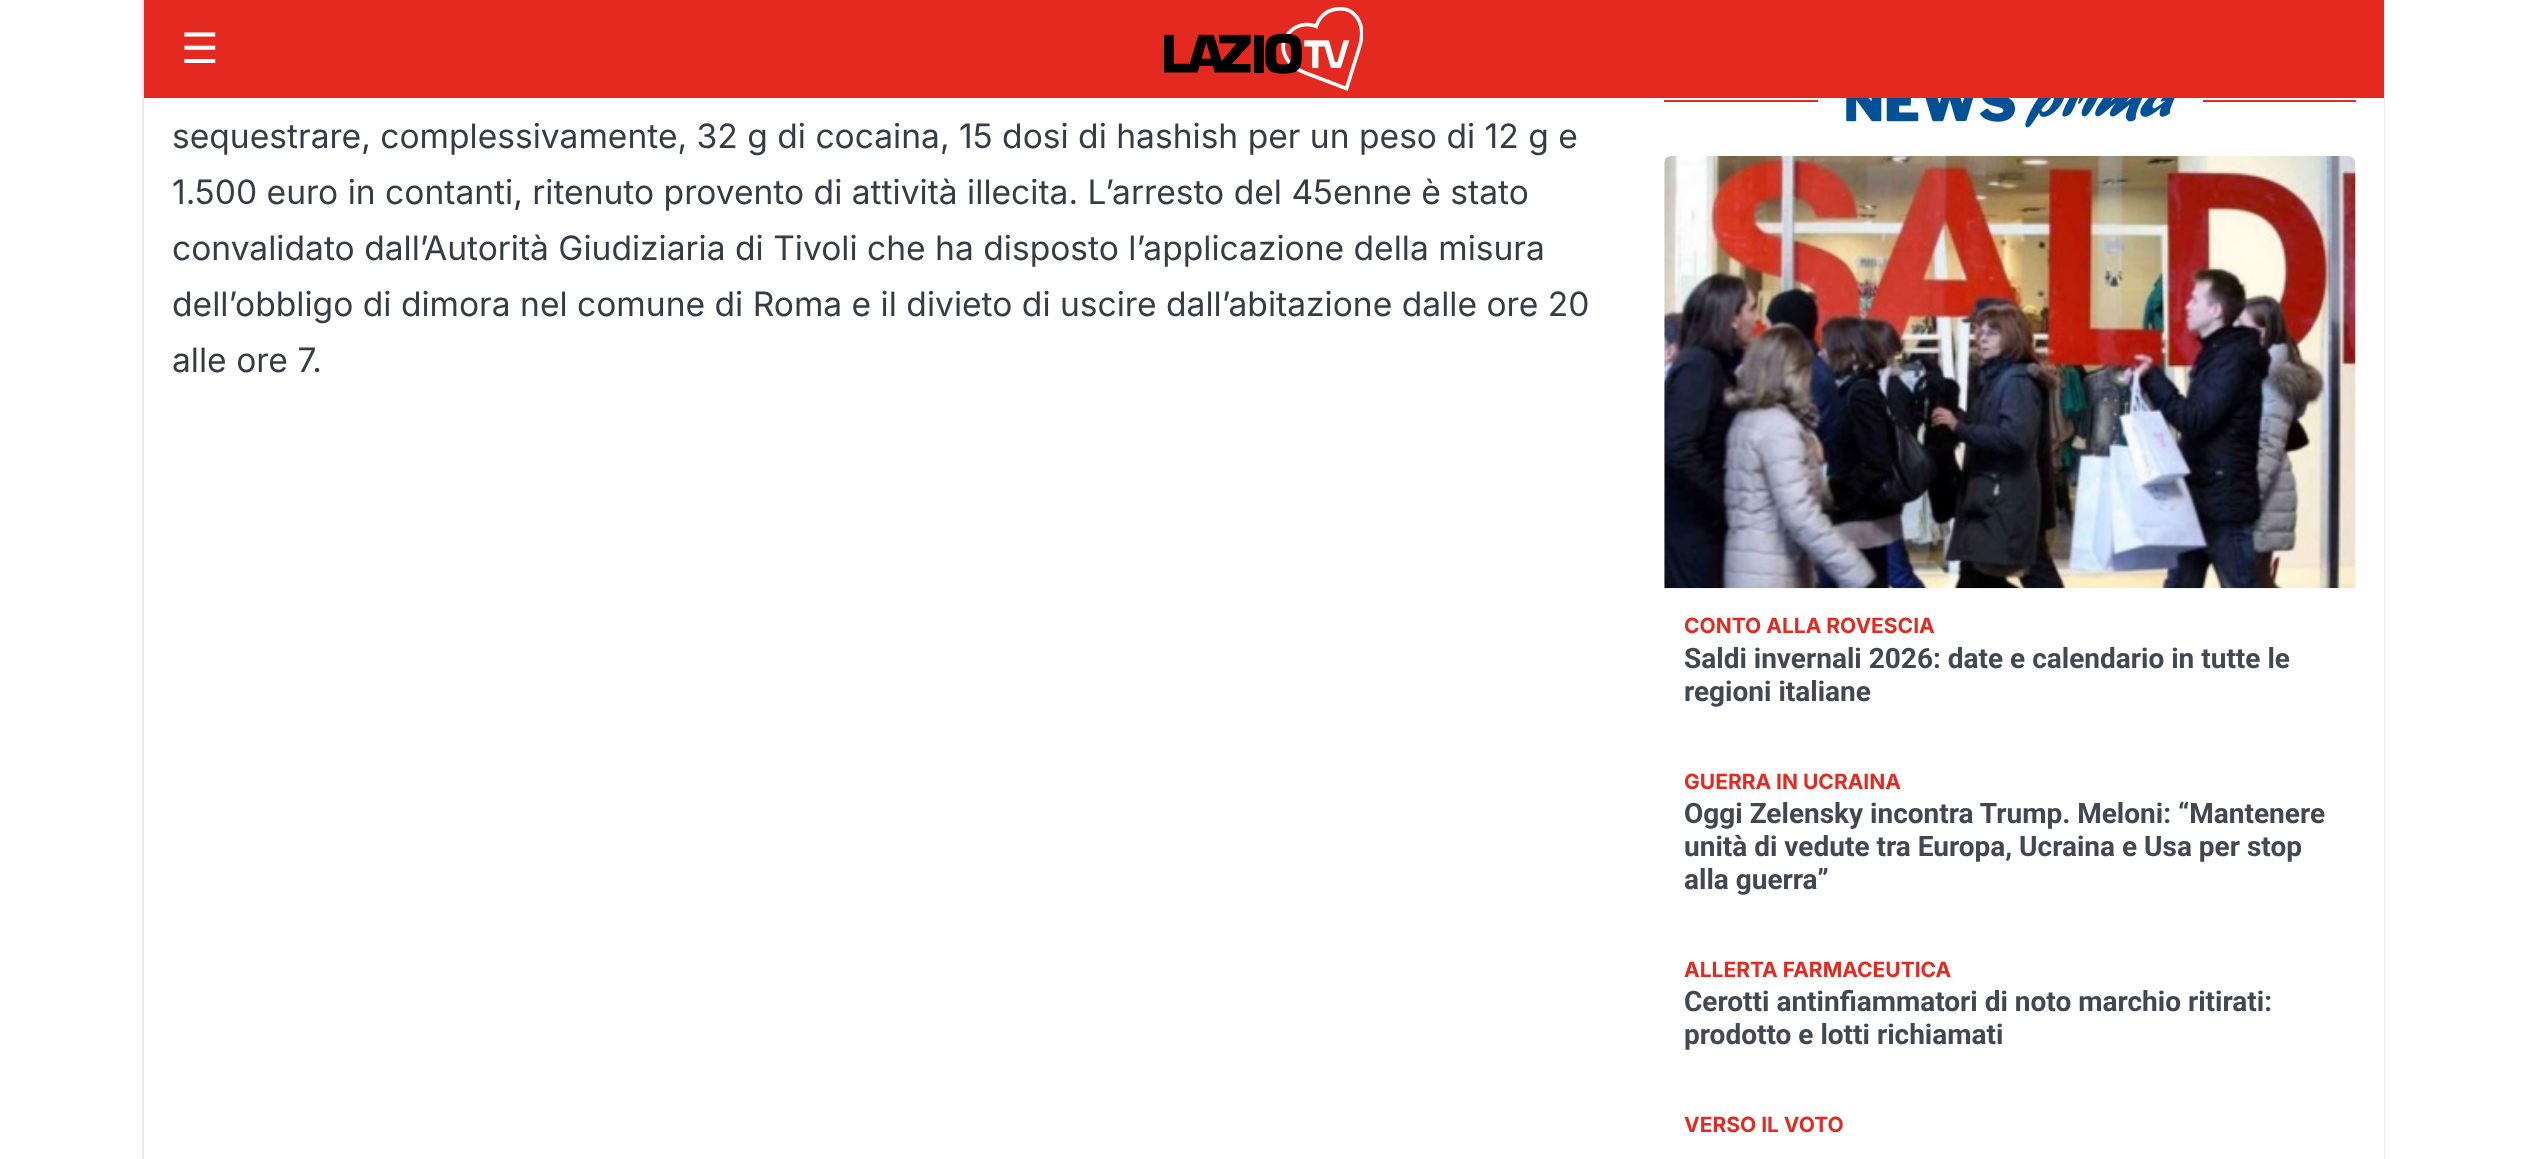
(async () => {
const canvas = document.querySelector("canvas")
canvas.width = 2526
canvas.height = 1159
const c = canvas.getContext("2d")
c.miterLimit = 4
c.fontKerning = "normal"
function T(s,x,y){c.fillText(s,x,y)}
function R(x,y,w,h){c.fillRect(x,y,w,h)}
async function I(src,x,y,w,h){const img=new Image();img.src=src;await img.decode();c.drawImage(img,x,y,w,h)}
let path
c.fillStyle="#fff"
R(0,0,2526,1159)
c.fillStyle="#e42920"
R(144,0,2240,98)
c.font="42px DejaVu Sans"
c.fillStyle="#fff"
T("☰",181,63)
await I("1.png",1164,7,199,84)
c.fillStyle="#e7eaf0"
path = new Path2D("M145 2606h2240v-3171h-1v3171z")
c.fill(path)
path = new Path2D("M142-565v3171h2240h-2238v-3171z")
c.fill(path)
c.font="33.6px Inter"
c.fillStyle="#373c44"
T("sequestrare, complessivamente, 32 g di cocaina, 15 dosi di hashish per un peso di 12 g e",172,148)
T("1.500 euro in contanti, ritenuto provento di attività illecita. L’arresto del 45enne è stato",172,204)
T("convalidato dall’Autorità Giudiziaria di Tivoli che ha disposto l’applicazione della misura",172,260)
T("dell’obbligo di dimora nel comune di Roma e il divieto di uscire dall’abitazione dalle ore 20",172,316)
T("alle ore 7.",172,372)
c.fillStyle="#e42920"
R(1664,100,692,2)
c.fillStyle="#fff"
R(1818,100,385,2)
await I("2.png",1846,98,329,30)
await I("3.png",1664,156,692,433)
c.font="bold 21px Inter"
c.fillStyle="#e42920"
T("CONTO ALLA ROVESCIA",1684,633)
c.font="bold 28px Roboto"
c.fillStyle="#424751"
T("Saldi invernali 2026: date e calendario in tutte le",1684,668)
T("regioni italiane",1684,701)
c.font="bold 21px Inter"
c.fillStyle="#e42920"
T("GUERRA IN UCRAINA",1684,789)
c.font="bold 28px Roboto"
c.fillStyle="#424751"
T("Oggi Zelensky incontra Trump. Meloni: “Mantenere",1684,823)
T("unità di vedute tra Europa, Ucraina e Usa per stop",1684,856)
T("alla guerra”",1684,889)
c.font="bold 21px Inter"
c.fillStyle="#e42920"
T("ALLERTA FARMACEUTICA",1684,977)
c.font="bold 28px Roboto"
c.fillStyle="#424751"
T("Cerotti antinfiammatori di noto marchio ritirati:",1684,1011)
T("prodotto e lotti richiamati",1684,1044)
c.font="bold 21px Inter"
c.fillStyle="#e42920"
T("VERSO IL VOTO",1684,1132)
})()
